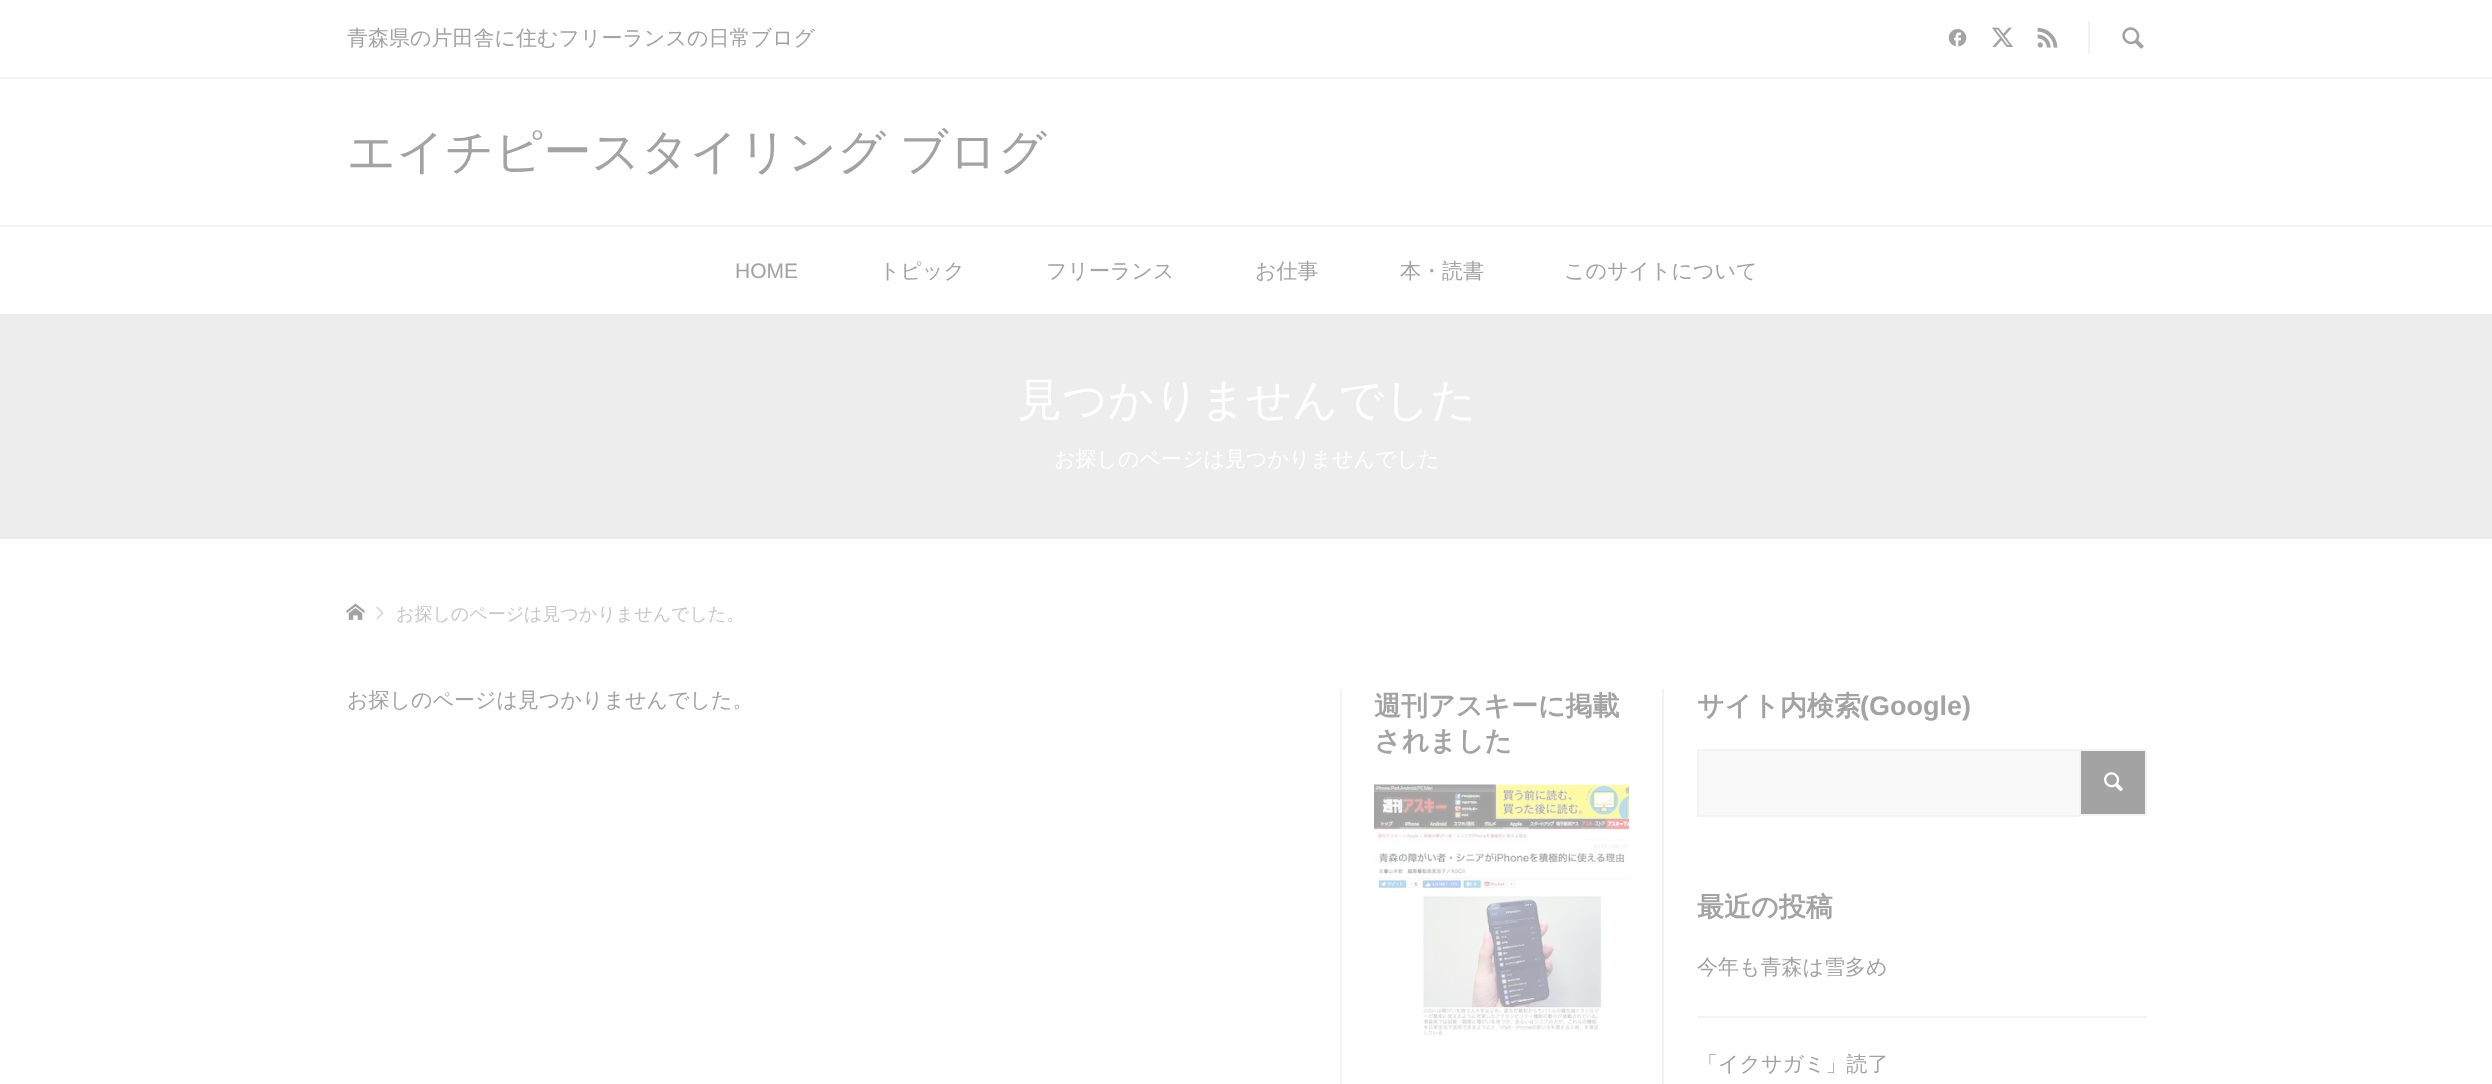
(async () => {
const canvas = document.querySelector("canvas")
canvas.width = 2492
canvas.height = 1084
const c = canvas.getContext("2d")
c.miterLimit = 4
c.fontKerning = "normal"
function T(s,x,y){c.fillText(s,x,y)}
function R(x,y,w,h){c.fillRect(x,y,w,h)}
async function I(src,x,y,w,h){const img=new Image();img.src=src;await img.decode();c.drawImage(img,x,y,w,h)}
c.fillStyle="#fff"
R(0,0,2492,1084)
c.fillStyle="#f3f3f3"
R(0,77,2492,2)
c.font="500 21px WenQuanYi Zen Hei"
c.fillStyle="#a3a3a3"
T("青森県の片田舎に住むフリーランスの日常ブログ",347,45)
await I("1.png",1948,29,19,18)
await I("2.png",1992,27,22,20)
await I("3.png",2037,27,21,21)
c.fillStyle="#f3f3f3"
R(2088,21,2,33)
await I("4.png",2122,27,22,22)
c.wordSpacing="-1px"
c.font="500 48px WenQuanYi Zen Hei"
c.fillStyle="#a3a3a3"
T("エイチピースタイリング ブログ",347,168)
c.fillStyle="#f3f3f3"
R(0,225,2492,2)
c.wordSpacing="0px"
c.font="21px Liberation Sans"
c.fillStyle="#a3a3a3"
T("HOME",735,278)
c.font="500 21px WenQuanYi Zen Hei"
T("トピック",879,278)
T("フリーランス",1046,278)
T("お仕事",1255,278)
T("本・読書",1400,278)
T("このサイトについて",1564,278)
c.fillStyle="#ededed"
R(0,314,2492,225)
c.font="500 45px WenQuanYi Zen Hei"
c.fillStyle="#fff"
T("見つかりませんでした",1017,415)
c.font="500 21px WenQuanYi Zen Hei"
T("お探しのページは見つかりませんでした",1054,466)
await I("5.png",346,603,19,17)
await I("6.png",376,606,8,14)
c.font="500 18px WenQuanYi Zen Hei"
c.fillStyle="#c8c8c8"
T("お探しのページは見つかりませんでした。",396,620)
c.font="500 21px WenQuanYi Zen Hei"
c.fillStyle="#a3a3a3"
T("お探しのページは見つかりませんでした。",347,707)
c.fillStyle="#f3f3f3"
R(1340,689,2,395)
c.font="bold 27px WenQuanYi Zen Hei"
c.fillStyle="#a3a3a3"
T("週刊アスキーに掲載",1374,715)
T("されました",1374,750)
await I("7.png",1374,784,255,254)
c.fillStyle="#f3f3f3"
R(1662,689,2,395)
c.fillStyle="#a3a3a3"
T("サイト内検索",1697,715)
c.font="bold 27px Liberation Sans"
T("(Google)",1860,715)
c.fillStyle="#f9f9f9"
R(1699,751,380,64)
c.fillStyle="#f3f3f3"
R(1697,749,382,2)
R(1697,815,382,2)
R(1697,749,2,67)
c.fillStyle="#a3a3a3"
c.beginPath()
c.rect(2080,750,66,65)
c.fill()
c.strokeStyle="#f3f3f3"
c.lineWidth=2
c.stroke()
await I("8.png",2104,772,19,20)
c.font="bold 27px WenQuanYi Zen Hei"
T("最近の投稿",1697,916)
c.fillStyle="#f3f3f3"
R(1697,1016,450,2)
c.font="500 21px WenQuanYi Zen Hei"
c.fillStyle="#a3a3a3"
T("今年も青森は雪多め",1697,974)
T("「イクサガミ」読了",1697,1071)
})()
